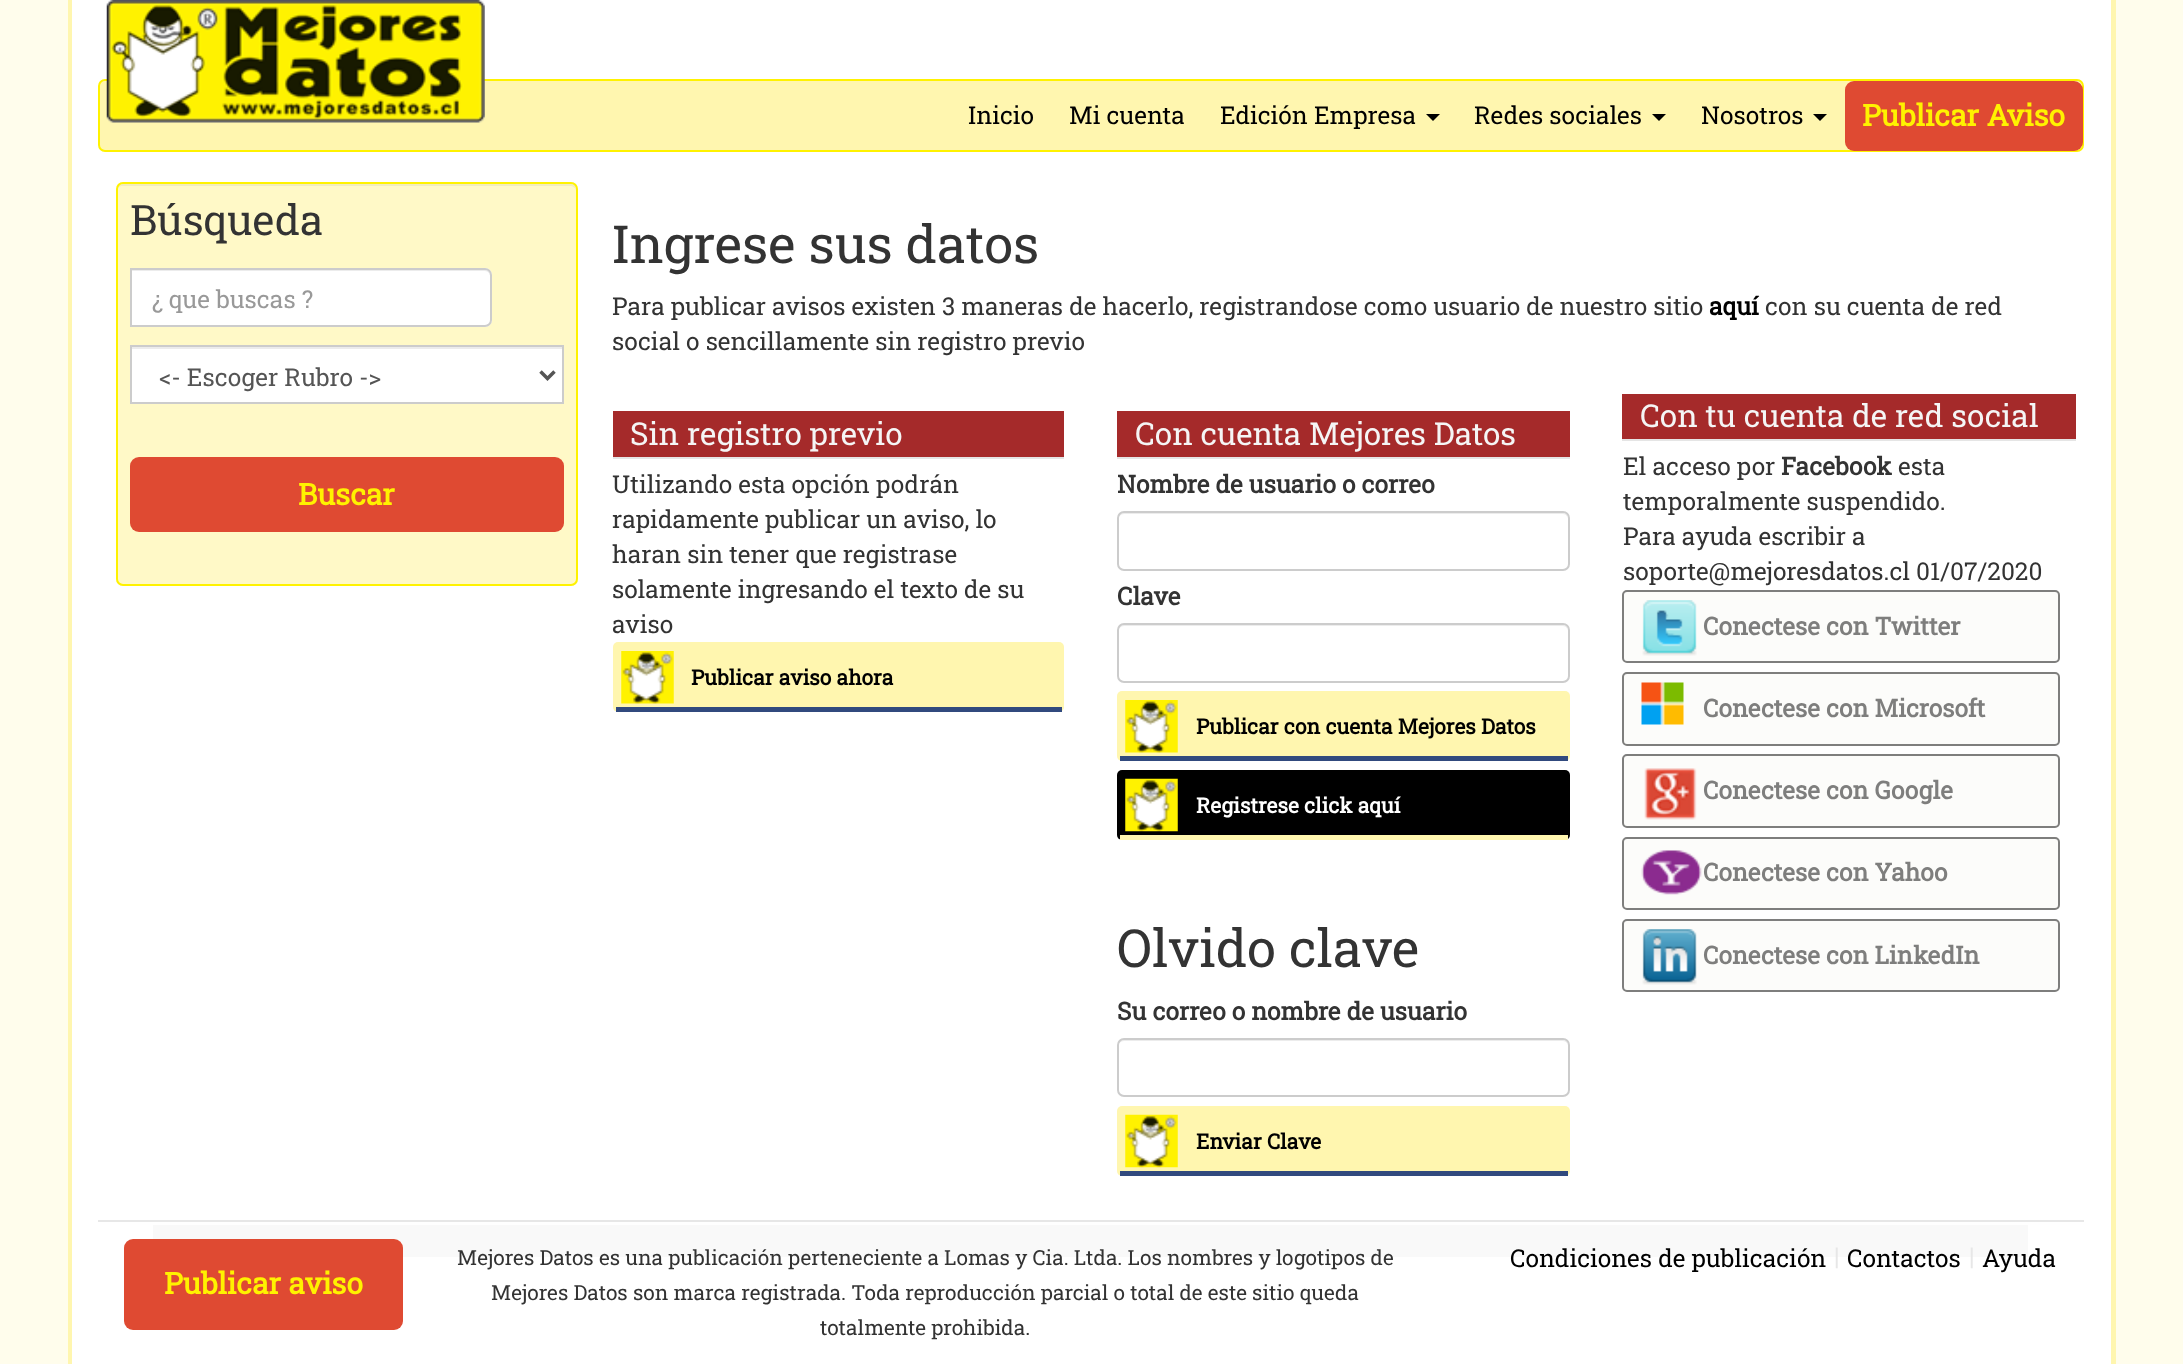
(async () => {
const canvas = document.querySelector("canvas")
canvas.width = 2183
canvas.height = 1364
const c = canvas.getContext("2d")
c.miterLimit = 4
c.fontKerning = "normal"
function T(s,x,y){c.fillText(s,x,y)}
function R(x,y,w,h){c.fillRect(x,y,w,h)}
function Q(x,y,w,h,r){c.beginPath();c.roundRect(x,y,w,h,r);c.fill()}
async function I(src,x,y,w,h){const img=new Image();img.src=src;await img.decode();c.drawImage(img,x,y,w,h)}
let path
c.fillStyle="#fffdec"
R(0,0,2183,1364)
c.fillStyle="#fff"
R(72,0,2039,1364)
c.fillStyle="#fff6af"
R(2111,0,5,1364)
R(68,0,4,1364)
c.beginPath()
c.roundRect(99,80,1984,71,6)
c.fill()
c.strokeStyle="#fff200"
c.lineWidth=2
c.stroke()
await I("1.png",106,0,379,123)
c.font="24.5px Roboto Slab"
c.fillStyle="#000"
T("Inicio",968,124)
T("Mi cuenta",1069,124)
T("Edición Empresa",1220,124)
path = new Path2D("M1426 114h14l-7 7z")
c.fill(path)
T("Redes sociales",1474,124)
path = new Path2D("M1652 114h14l-7 7z")
c.fill(path)
T("Nosotros",1701,124)
path = new Path2D("M1813 114h14l-7 7z")
c.fill(path)
c.fillStyle="#df4a32"
Q(1845,81,238,70,9)
c.font="bold 29.75px Roboto Slab"
c.fillStyle="#fff200"
T("Publicar Aviso",1862,126)
c.fillStyle="#fff9c7"
Q(116,182,462,404,7)
c.fillStyle="#f2edbd"
path = new Path2D("M122 186h448c3 0 6 2 6 5c0-3-1-7-5-7h-449c-4 0-5 4-5 7c0-3 3-5 5-5z")
c.fill(path)
c.beginPath()
c.roundRect(117,183,460,402,6)
c.stroke()
c.font="42px Roboto Slab"
c.fillStyle="#333"
T("Búsqueda",130,235)
c.fillStyle="#fff"
c.beginPath()
c.roundRect(130,268,362,59,[0,7,7,0])
c.fill()
c.fillStyle="#ececec"
path = new Path2D("M131 271h354c3 0 5 3 5 5v-1c0-3-2-5-5-5h-354z")
c.fill(path)
c.beginPath()
c.roundRect(131,269,360,57,[0,6,6,0])
c.strokeStyle="#ccc"
c.stroke()
c.font="24.5px Roboto Slab"
c.fillStyle="#999"
T("¿ que buscas ?",152,308)
c.fillStyle="#fff"
R(132,349,430,53)
c.fillStyle="#ececec"
R(131,347,431,2)
c.strokeRect(131,346,432,57)
path = new Path2D("M540.5 371.5l7 7l7-7")
c.strokeStyle="#555"
c.lineWidth=3.5
c.stroke(path)
c.fillStyle="#555"
T("<- Escoger Rubro ->",159,386)
c.fillStyle="#df4a32"
Q(130,457,434,75,9)
c.font="bold 29.75px Roboto Slab"
c.fillStyle="#fff200"
T("Buscar",298,505)
c.font="52.5px Roboto Slab"
c.fillStyle="#333"
T("Ingrese sus datos",612,263)
c.font="24.5px Roboto Slab"
T("Para publicar avisos existen 3 maneras de hacerlo, registrandose como usuario de nuestro sitio",612,315)
c.font="bold 24.5px Roboto Slab"
c.fillStyle="#000"
T("aquí",1709,315)
c.font="24.5px Roboto Slab"
c.fillStyle="#333"
T("con su cuenta de red",1765,315)
T("social o sencillamente sin registro previo",612,350)
c.fillStyle="#a52a2a"
R(613,411,451,46)
c.fillStyle="#e5e5e5"
R(613,457,451,2)
c.font="31.5px Roboto Slab"
c.fillStyle="#f5f5f5"
T("Sin registro previo",630,445)
c.font="24.5px Roboto Slab"
c.fillStyle="#333"
T("Utilizando esta opción podrán",612,493)
T("rapidamente publicar un aviso, lo",612,528)
T("haran sin tener que registrase",612,563)
T("solamente ingresando el texto de su",612,598)
T("aviso",612,633)
c.fillStyle="#fff6af"
Q(613,642,451,70,5)
await I("2.png",621,651,53,53)
c.fillStyle="#314a7e"
R(616,707,446,5)
c.font="bold 21px Roboto Slab"
c.fillStyle="#000"
T("Publicar aviso ahora",691,685)
c.fillStyle="#a52a2a"
R(1117,411,453,46)
c.fillStyle="#e5e5e5"
R(1117,457,453,2)
c.font="31.5px Roboto Slab"
c.fillStyle="#f5f5f5"
T("Con cuenta Mejores Datos",1135,445)
c.font="bold 24.5px Roboto Slab"
c.fillStyle="#333"
T("Nombre de usuario o correo",1117,493)
c.fillStyle="#ececec"
path = new Path2D("M1124 514h439c3 0 5 3 5 6c0-3-1-7-5-7h-440c-4 0-5 4-5 7c0-3 3-6 6-6z")
c.fill(path)
c.beginPath()
c.roundRect(1118,512,451,58,6)
c.strokeStyle="#ccc"
c.lineWidth=2
c.stroke()
c.fillStyle="#333"
T("Clave",1117,605)
c.fillStyle="#ececec"
path = new Path2D("M1124 626h439c3 0 5 3 5 6c0-3-1-7-5-7h-440c-4 0-5 4-5 7c0-3 3-6 6-6z")
c.fill(path)
c.beginPath()
c.roundRect(1118,624,451,58,6)
c.stroke()
c.fillStyle="#fff6af"
Q(1117,691,453,70,5)
await I("2.png",1125,700,53,53)
c.fillStyle="#314a7e"
R(1120,756,448,5)
c.font="bold 21px Roboto Slab"
c.fillStyle="#000"
T("Publicar con cuenta Mejores Datos",1196,734)
Q(1117,770,453,70,5)
await I("3.png",1125,778,53,54)
c.fillStyle="#fff6af"
R(1120,835,448,5)
c.fillStyle="#fff"
T("Registrese click aquí",1196,813)
c.font="52.5px Roboto Slab"
c.fillStyle="#333"
T("Olvido clave",1117,967)
c.font="bold 24.5px Roboto Slab"
T("Su correo o nombre de usuario",1117,1020)
c.fillStyle="#ececec"
path = new Path2D("M1124 1041h439c3 0 5 3 5 5c0-3-2-6-5-6h-440c-3 0-5 3-5 6c0-2 3-5 6-5z")
c.fill(path)
c.beginPath()
c.roundRect(1118,1039,451,57,6)
c.stroke()
c.fillStyle="#fff6af"
Q(1117,1106,453,70,5)
await I("4.png",1125,1114,53,54)
c.fillStyle="#314a7e"
R(1120,1171,448,5)
c.font="bold 21px Roboto Slab"
c.fillStyle="#000"
T("Enviar Clave",1196,1149)
c.fillStyle="#a52a2a"
R(1622,394,454,45)
c.fillStyle="#e5e5e5"
R(1622,439,454,2)
c.font="31.5px Roboto Slab"
c.fillStyle="#f5f5f5"
T("Con tu cuenta de red social",1640,427)
c.font="24.5px Roboto Slab"
c.fillStyle="#333"
T("El acceso por",1623,475)
c.font="bold 24.5px Roboto Slab"
T("Facebook",1781,475)
c.font="24.5px Roboto Slab"
T("esta",1898,475)
T("temporalmente suspendido.",1623,510)
T("Para ayuda escribir a",1623,545)
T("soporte@mejoresdatos.cl 01/07/2020",1623,580)
c.fillStyle="#fcfcfa"
Q(1622,590,438,73,5)
await I("5.png",1642,600,55,56)
c.beginPath()
c.roundRect(1623,591,436,71,4)
c.strokeStyle="#7e7e7d"
c.stroke()
c.font="bold 24.5px Roboto Slab"
c.fillStyle="#7e7e7d"
T("Conectese con Twitter",1703,635)
c.fillStyle="#fcfcfa"
Q(1622,672,438,74,5)
await I("6.png",1641,682,43,43)
c.beginPath()
c.roundRect(1623,673,436,72,4)
c.stroke()
c.fillStyle="#7e7e7d"
T("Conectese con Microsoft",1703,717)
c.fillStyle="#fcfcfa"
Q(1622,754,438,74,5)
await I("7.png",1644,768,53,52)
c.beginPath()
c.roundRect(1623,755,436,72,4)
c.stroke()
c.fillStyle="#7e7e7d"
T("Conectese con Google",1703,799)
c.fillStyle="#fcfcfa"
Q(1622,837,438,73,5)
await I("8.png",1641,850,61,45)
c.beginPath()
c.roundRect(1623,838,436,71,4)
c.stroke()
c.fillStyle="#7e7e7d"
T("Conectese con Yahoo",1703,881)
c.fillStyle="#fcfcfa"
Q(1622,919,438,73,5)
await I("9.png",1642,929,55,56)
c.beginPath()
c.roundRect(1623,920,436,71,4)
c.stroke()
c.fillStyle="#7e7e7d"
T("Conectese con LinkedIn",1703,964)
c.fillStyle="#e7e7e7"
R(98,1220,1986,2)
c.fillStyle="#f9f9f9"
R(153,1225,1875,32)
c.fillStyle="#df4a32"
Q(124,1239,279,91,9)
c.font="bold 29.75px Roboto Slab"
c.fillStyle="#fff200"
T("Publicar aviso",164,1294)
c.font="20.8px Roboto Slab"
c.fillStyle="#333"
T("Mejores Datos es una publicación perteneciente a Lomas y Cia. Ltda. Los nombres y logotipos de",457,1265)
T("Mejores Datos son marca registrada. Toda reproducción parcial o total de este sitio queda",491,1300)
T("totalmente prohibida.",820,1335)
c.font="24.5px Roboto Slab"
c.fillStyle="#000"
T("Condiciones de publicación",1510,1267)
c.fillStyle="#e7e7e7"
T("|",1834,1265)
c.fillStyle="#000"
T("Contactos",1847,1267)
c.fillStyle="#e7e7e7"
T("|",1969,1265)
c.fillStyle="#000"
T("Ayuda",1982,1267)
})()
